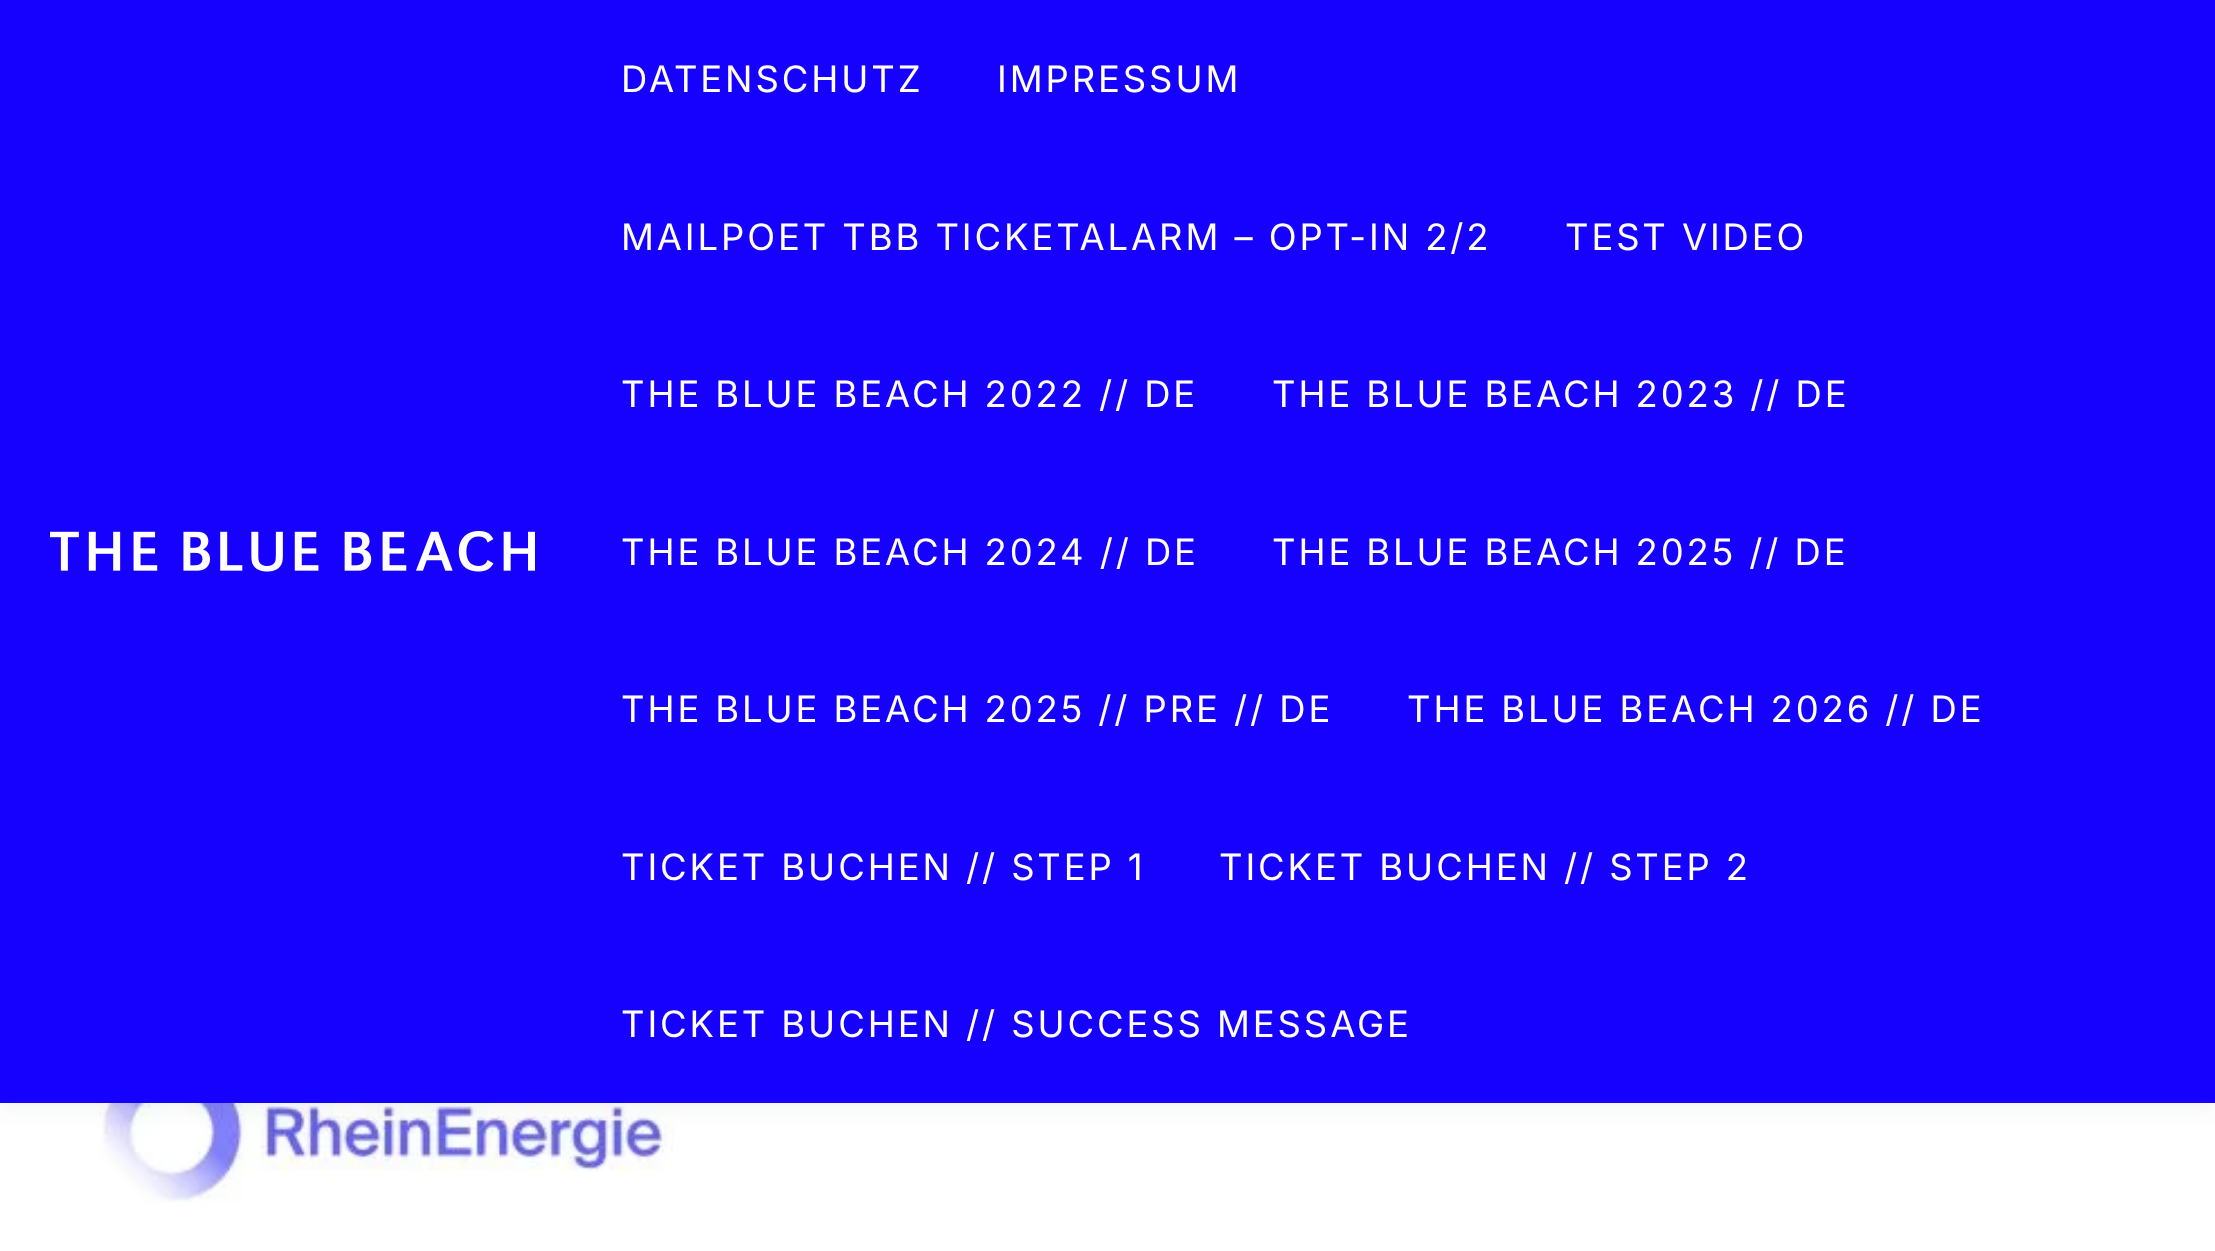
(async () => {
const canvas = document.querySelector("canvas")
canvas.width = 2215
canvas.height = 1251
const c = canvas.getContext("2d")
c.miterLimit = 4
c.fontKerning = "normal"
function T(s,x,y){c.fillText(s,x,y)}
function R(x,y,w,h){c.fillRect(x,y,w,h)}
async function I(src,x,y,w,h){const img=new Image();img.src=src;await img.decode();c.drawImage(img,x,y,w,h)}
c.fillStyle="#fff"
R(0,0,2215,1251)
await I("2.png",99,1103,576,100)
c.fillStyle="#24324212"
c.filter="blur(11px)"
c.beginPath()
c.rect(0,5,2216,1102)
c.fill()
c.filter="none"
c.fillStyle="#1601fe"
R(0,0,2215,1103)
await I("1.png",50,531,485,41)
c.letterSpacing="2.9px"
c.font="36.45px Inter"
c.fillStyle="#fff"
T("DATENSCHUTZ",621,92)
T("IMPRESSUM",997,92)
T("MAILPOET TBB TICKETALARM – OPT-IN 2/2",621,250)
T("TEST VIDEO",1565,250)
T("THE BLUE BEACH 2022 // DE",621,407)
T("THE BLUE BEACH 2023 // DE",1272,407)
T("THE BLUE BEACH 2024 // DE",621,565)
T("THE BLUE BEACH 2025 // DE",1272,565)
T("THE BLUE BEACH 2025 // PRE // DE",621,722)
T("THE BLUE BEACH 2026 // DE",1407,722)
T("TICKET BUCHEN // STEP 1",621,880)
T("TICKET BUCHEN // STEP 2",1219,880)
T("TICKET BUCHEN // SUCCESS MESSAGE",621,1037)
})()
